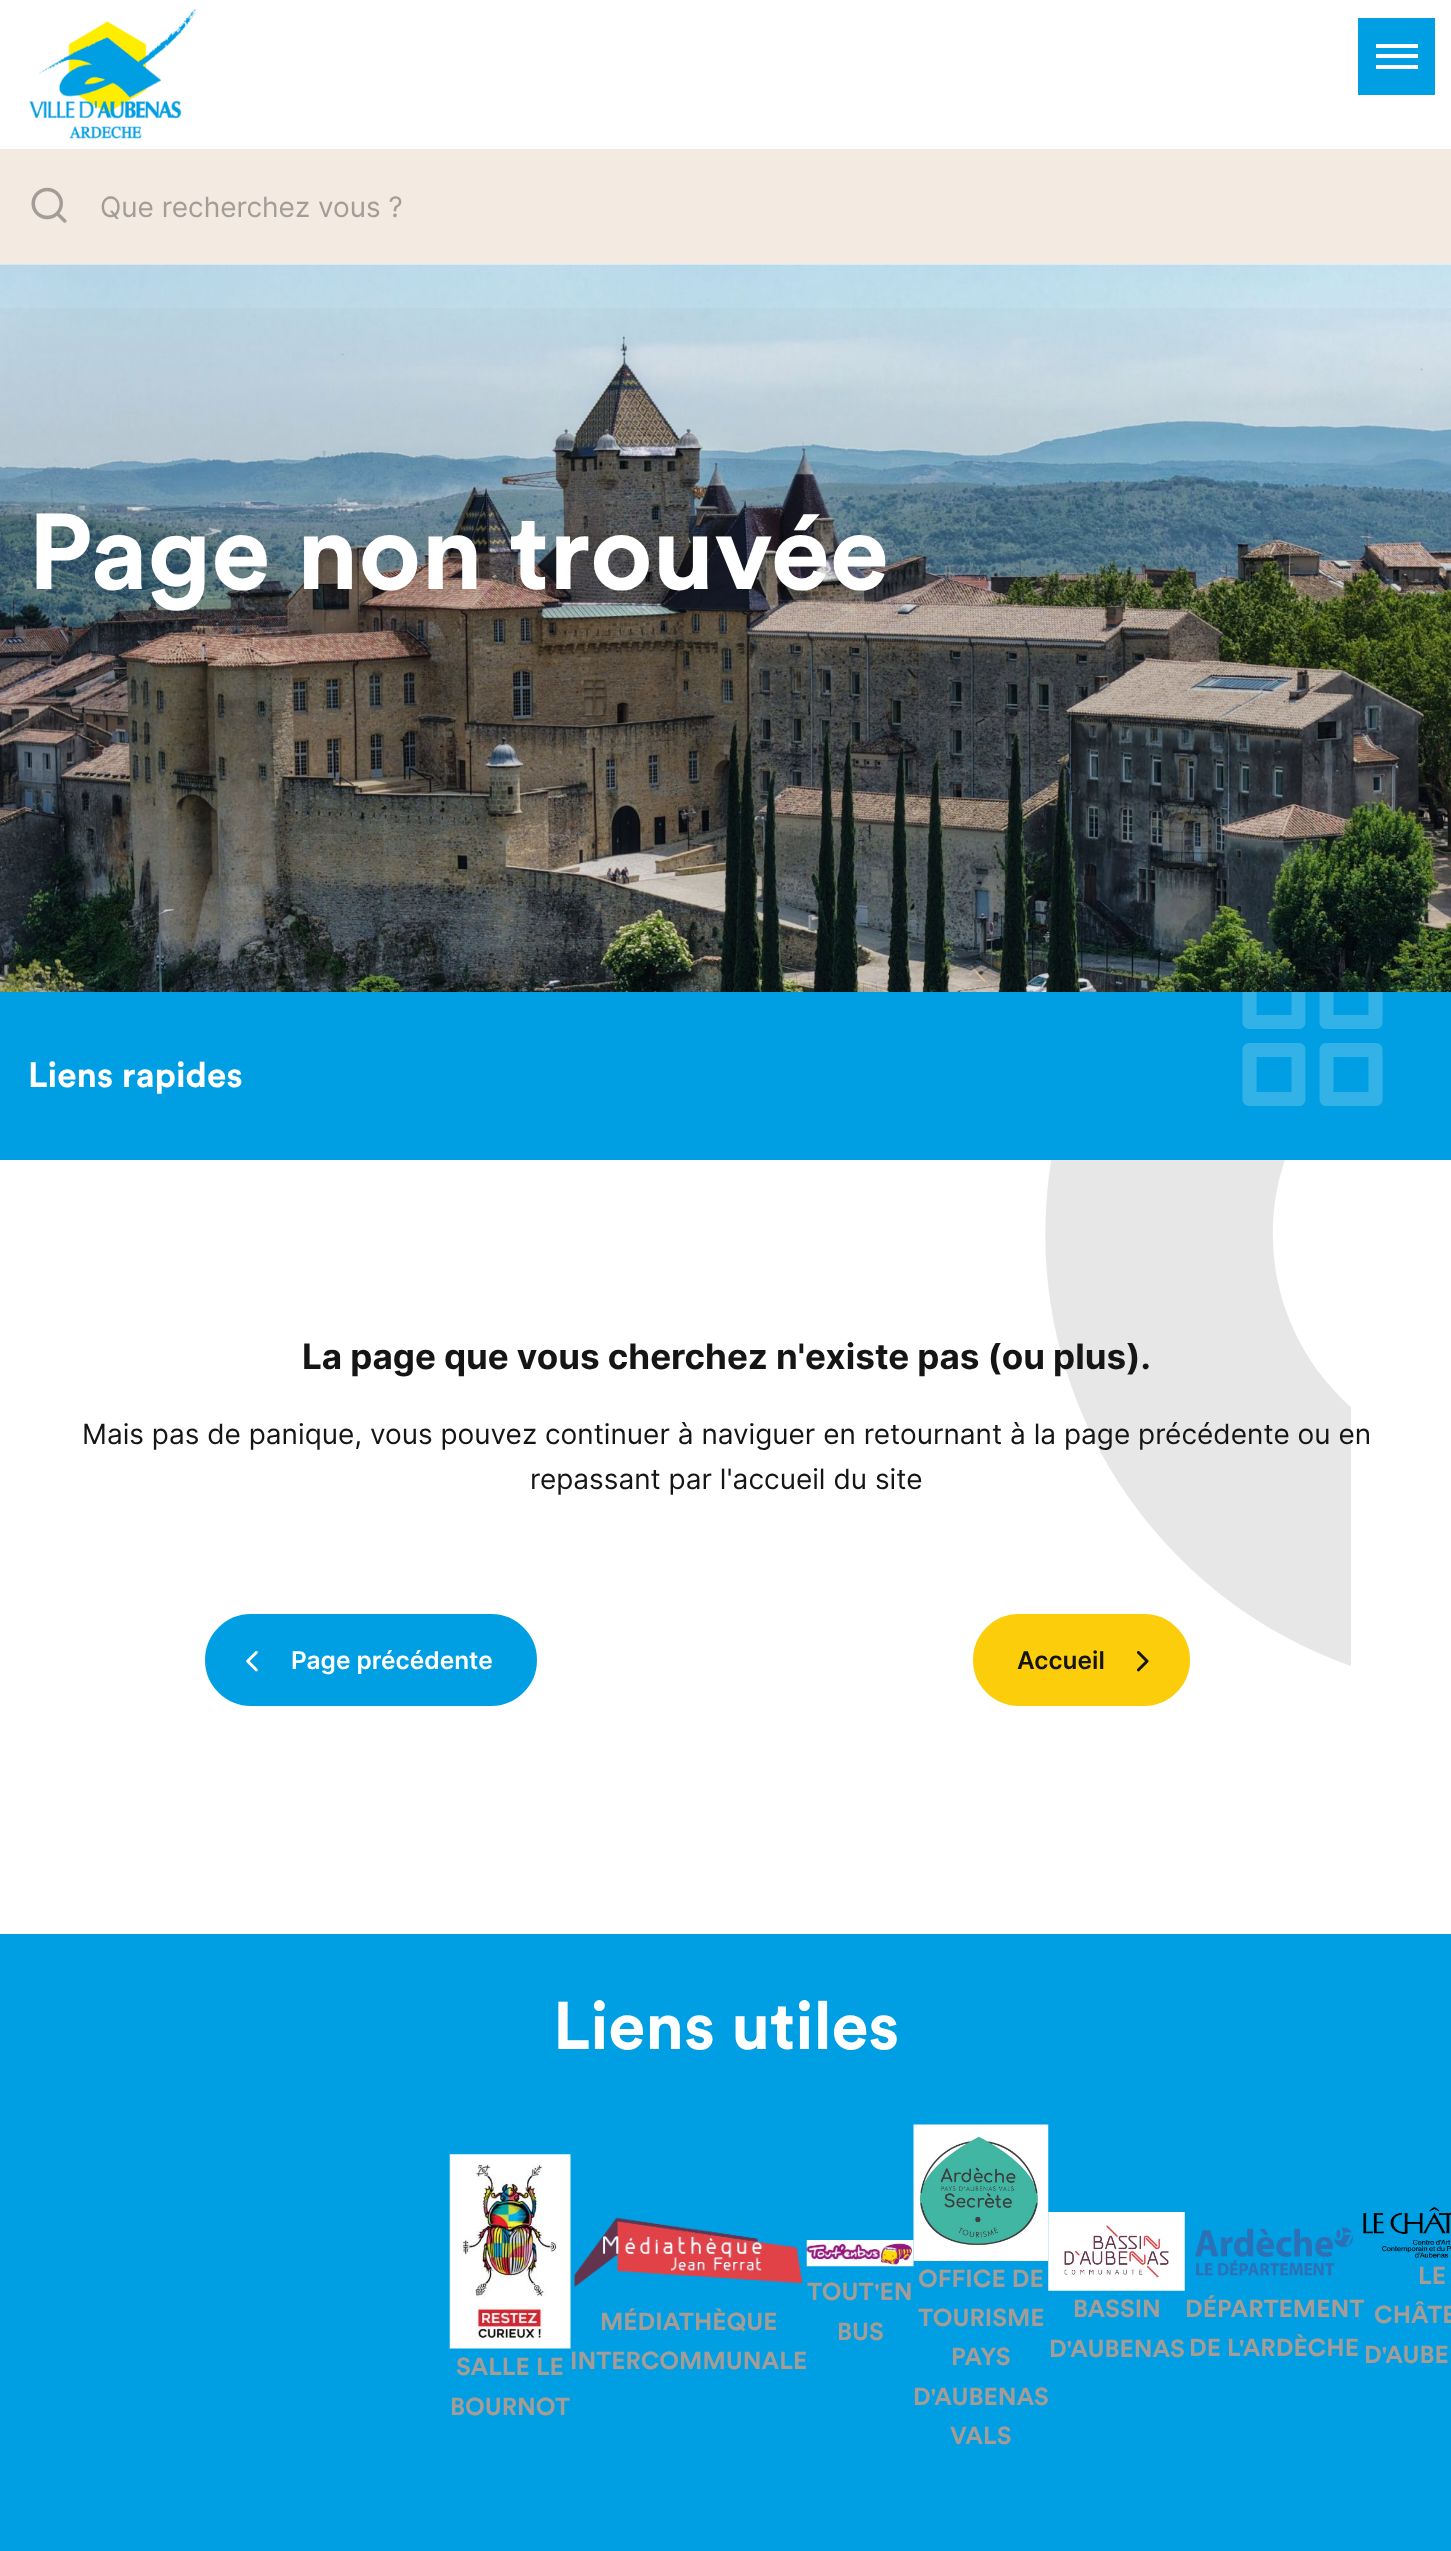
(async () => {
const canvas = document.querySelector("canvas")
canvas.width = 1451
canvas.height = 2551
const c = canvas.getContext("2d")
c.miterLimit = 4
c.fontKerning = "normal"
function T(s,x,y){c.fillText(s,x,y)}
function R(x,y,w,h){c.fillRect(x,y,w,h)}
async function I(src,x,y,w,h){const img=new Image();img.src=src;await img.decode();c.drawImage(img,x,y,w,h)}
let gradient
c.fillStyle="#fff"
R(0,0,1451,2551)
await I("1.png",29,8,167,131)
c.fillStyle="#009fe3"
R(1358,18,77,77)
c.fillStyle="#fff"
R(1376,44,42,4)
R(1376,54,42,4)
R(1376,65,42,4)
c.fillStyle="#f3ebe1"
R(0,149,1451,115)
await I("2.png",31,187,36,36)
c.font="28px Inter"
c.fillStyle="#a49c96"
T("Que recherchez vous ?",100,217)
await I("3.png",0,264,1451,728)
gradient = c.createLinearGradient(726,264,726,1160)
gradient.addColorStop(0,"#0a0a0a00")
gradient.addColorStop(.5,"#0a0a0a38")
gradient.addColorStop(1,"#0a0a0a00")
c.fillStyle = gradient
R(0,308,1451,684)
c.font="bold 106.5px Circular"
c.fillStyle="#fff"
T("Page non trouvée",28,589)
c.fillStyle="#009fe3"
R(0,992,1451,168)
c.font="bold 35px Circular"
c.fillStyle="#fff"
T("Liens rapides",28,1087)
await I("4.png",1242,992,141,114)
await I("5.png",1045,1160,306,506)
c.font="bold 35px Inter"
c.fillStyle="#151515"
T("La page que vous cherchez n'existe pas (ou plus).",302,1369)
c.font="28px Inter"
T("Mais pas de panique, vous pouvez continuer à naviguer en retournant à la page précédente ou en",82,1444)
T("repassant par l'accueil du site",530,1489)
c.fillStyle="#009fe3"
c.beginPath()
c.roundRect(206,1615,330,90,45)
c.fill()
c.strokeStyle="#009fe3"
c.lineWidth=2
c.stroke()
await I("6.png",246,1651,12,21)
c.font="600 24.5px Inter"
c.fillStyle="#fff"
T("Page précédente",291,1669)
c.fillStyle="#fccd0b"
c.beginPath()
c.roundRect(974,1615,215,90,45)
c.fill()
c.strokeStyle="#fccd0b"
c.stroke()
c.fillStyle="#151515"
T("Accueil",1017,1669)
await I("7.png",1136,1651,13,21)
c.fillStyle="#009fe3"
R(0,1934,1451,617)
c.font="bold 66.5px Circular"
c.fillStyle="#fff"
T("Liens utiles",553,2049)
await I("8.png",574,2217,229,71)
c.font="bold 24.5px Circular"
c.fillStyle="#a49c96"
T("MÉDIATHÈQUE",600,2330)
T("INTERCOMMUNALE",570,2369)
await I("9.png",806,2240,108,27)
T("TOUT'EN",807,2300)
T("BUS",837,2340)
await I("10.png",913,2124,136,137)
T("OFFICE DE",918,2287)
T("TOURISME",918,2326)
T("PAYS",951,2365)
T("D'AUBENAS",913,2405)
T("VALS",950,2444)
await I("11.png",1048,2212,137,79)
T("BASSIN",1073,2317)
T("D'AUBENAS",1049,2357)
await I("12.png",1195,2227,159,49)
T("DÉPARTEMENT",1185,2317)
T("DE L'ARDÈCHE",1189,2356)
await I("13.png",1363,2206,88,52)
T("LE",1418,2284)
T("CHÂTE",1374,2323)
T("D'AUBE",1364,2363)
await I("14.png",449,2154,122,195)
T("SALLE LE",456,2375)
T("BOURNOT",450,2415)
})()
